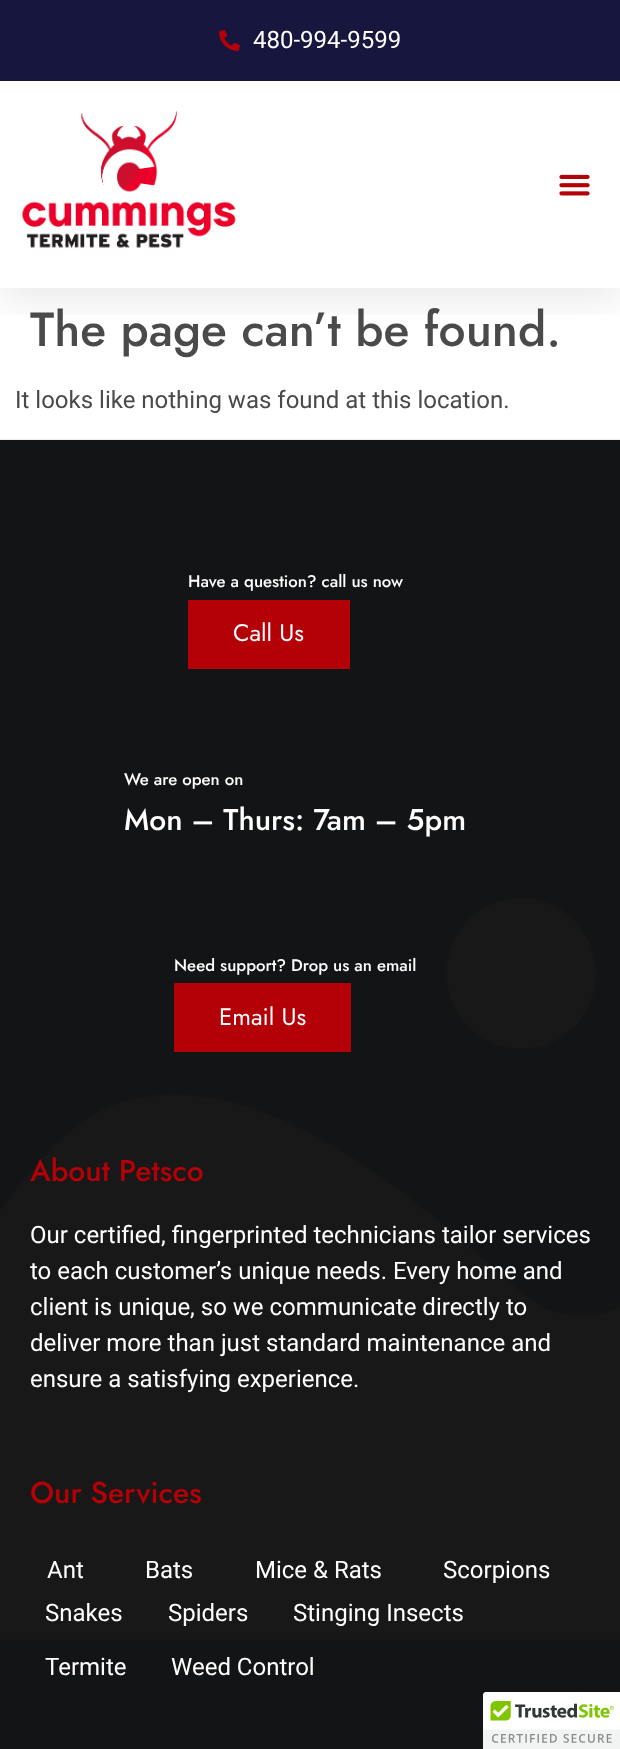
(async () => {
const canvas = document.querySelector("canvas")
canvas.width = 620
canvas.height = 1749
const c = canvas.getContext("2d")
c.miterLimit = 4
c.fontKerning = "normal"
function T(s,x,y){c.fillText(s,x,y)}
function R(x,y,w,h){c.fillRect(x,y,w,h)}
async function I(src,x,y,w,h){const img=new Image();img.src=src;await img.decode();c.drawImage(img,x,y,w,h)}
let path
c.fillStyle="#fff"
R(0,0,620,1749)
c.save()
c.beginPath()
c.rect(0,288,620,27)
c.clip()
c.fillStyle="#0000001a"
c.filter="blur(22.5px)"
c.beginPath()
c.rect(0,8,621,288)
c.fill()
c.filter="none"
c.restore()
c.fillStyle="#16163f"
R(0,0,620,81)
await I("1.png",219,30,21,21)
c.font="24px Roboto"
c.fillStyle="#fff"
T("480-994-9599",253,48)
await I("2.png",22,111,214,137)
await I("3.png",559,174,31,22)
c.font="500 48px Jost"
c.fillStyle="#4a4a4a"
T("The page can’t be found.",30,346)
c.font="24px Roboto"
T("It looks like nothing was found at this location.",15,408)
await I("4.png",0,439,620,1310)
c.font="500 16.75px Jost"
c.fillStyle="#fff"
T("Have a question? call us now",188,587)
c.fillStyle="#b40007"
R(188,600,162,69)
c.font="24px Jost"
c.fillStyle="#fff"
T("Call Us",233,641)
c.font="500 16.75px Jost"
T("We are open on",124,785)
c.font="500 30px Jost"
T("Mon – Thurs: 7am – 5pm",124,830)
c.font="500 16.75px Jost"
T("Need support? Drop us an email",174,971)
c.fillStyle="#b40007"
R(174,983,177,69)
c.font="24px Jost"
c.fillStyle="#fff"
T("Email Us",219,1025)
c.font="500 30px Jost"
c.fillStyle="#b40007"
T("About Petsco",30,1181)
c.font="24px Roboto"
c.fillStyle="#fff"
T("Our certified, fingerprinted technicians tailor services",30,1243)
T("to each customer’s unique needs. Every home and",30,1279)
T("client is unique, so we communicate directly to",30,1315)
T("deliver more than just standard maintenance and",30,1351)
T("ensure a satisfying experience.",30,1387)
c.font="500 30px Jost"
c.fillStyle="#b40007"
T("Our Services",30,1503)
c.font="24px Roboto"
c.fillStyle="#fff"
T("Ant",47,1578)
T("Bats",145,1578)
T("Mice & Rats",255,1578)
T("Scorpions",443,1578)
T("Snakes",45,1621)
T("Spiders",168,1621)
T("Stinging Insects",293,1621)
T("Termite",45,1675)
T("Weed Control",171,1675)
path = new Path2D("M486 1692h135v57h-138v-54c0-1.5 1.5-3 3-3z")
c.fill(path)
await I("5.png",483,1692,137,57)
})()
